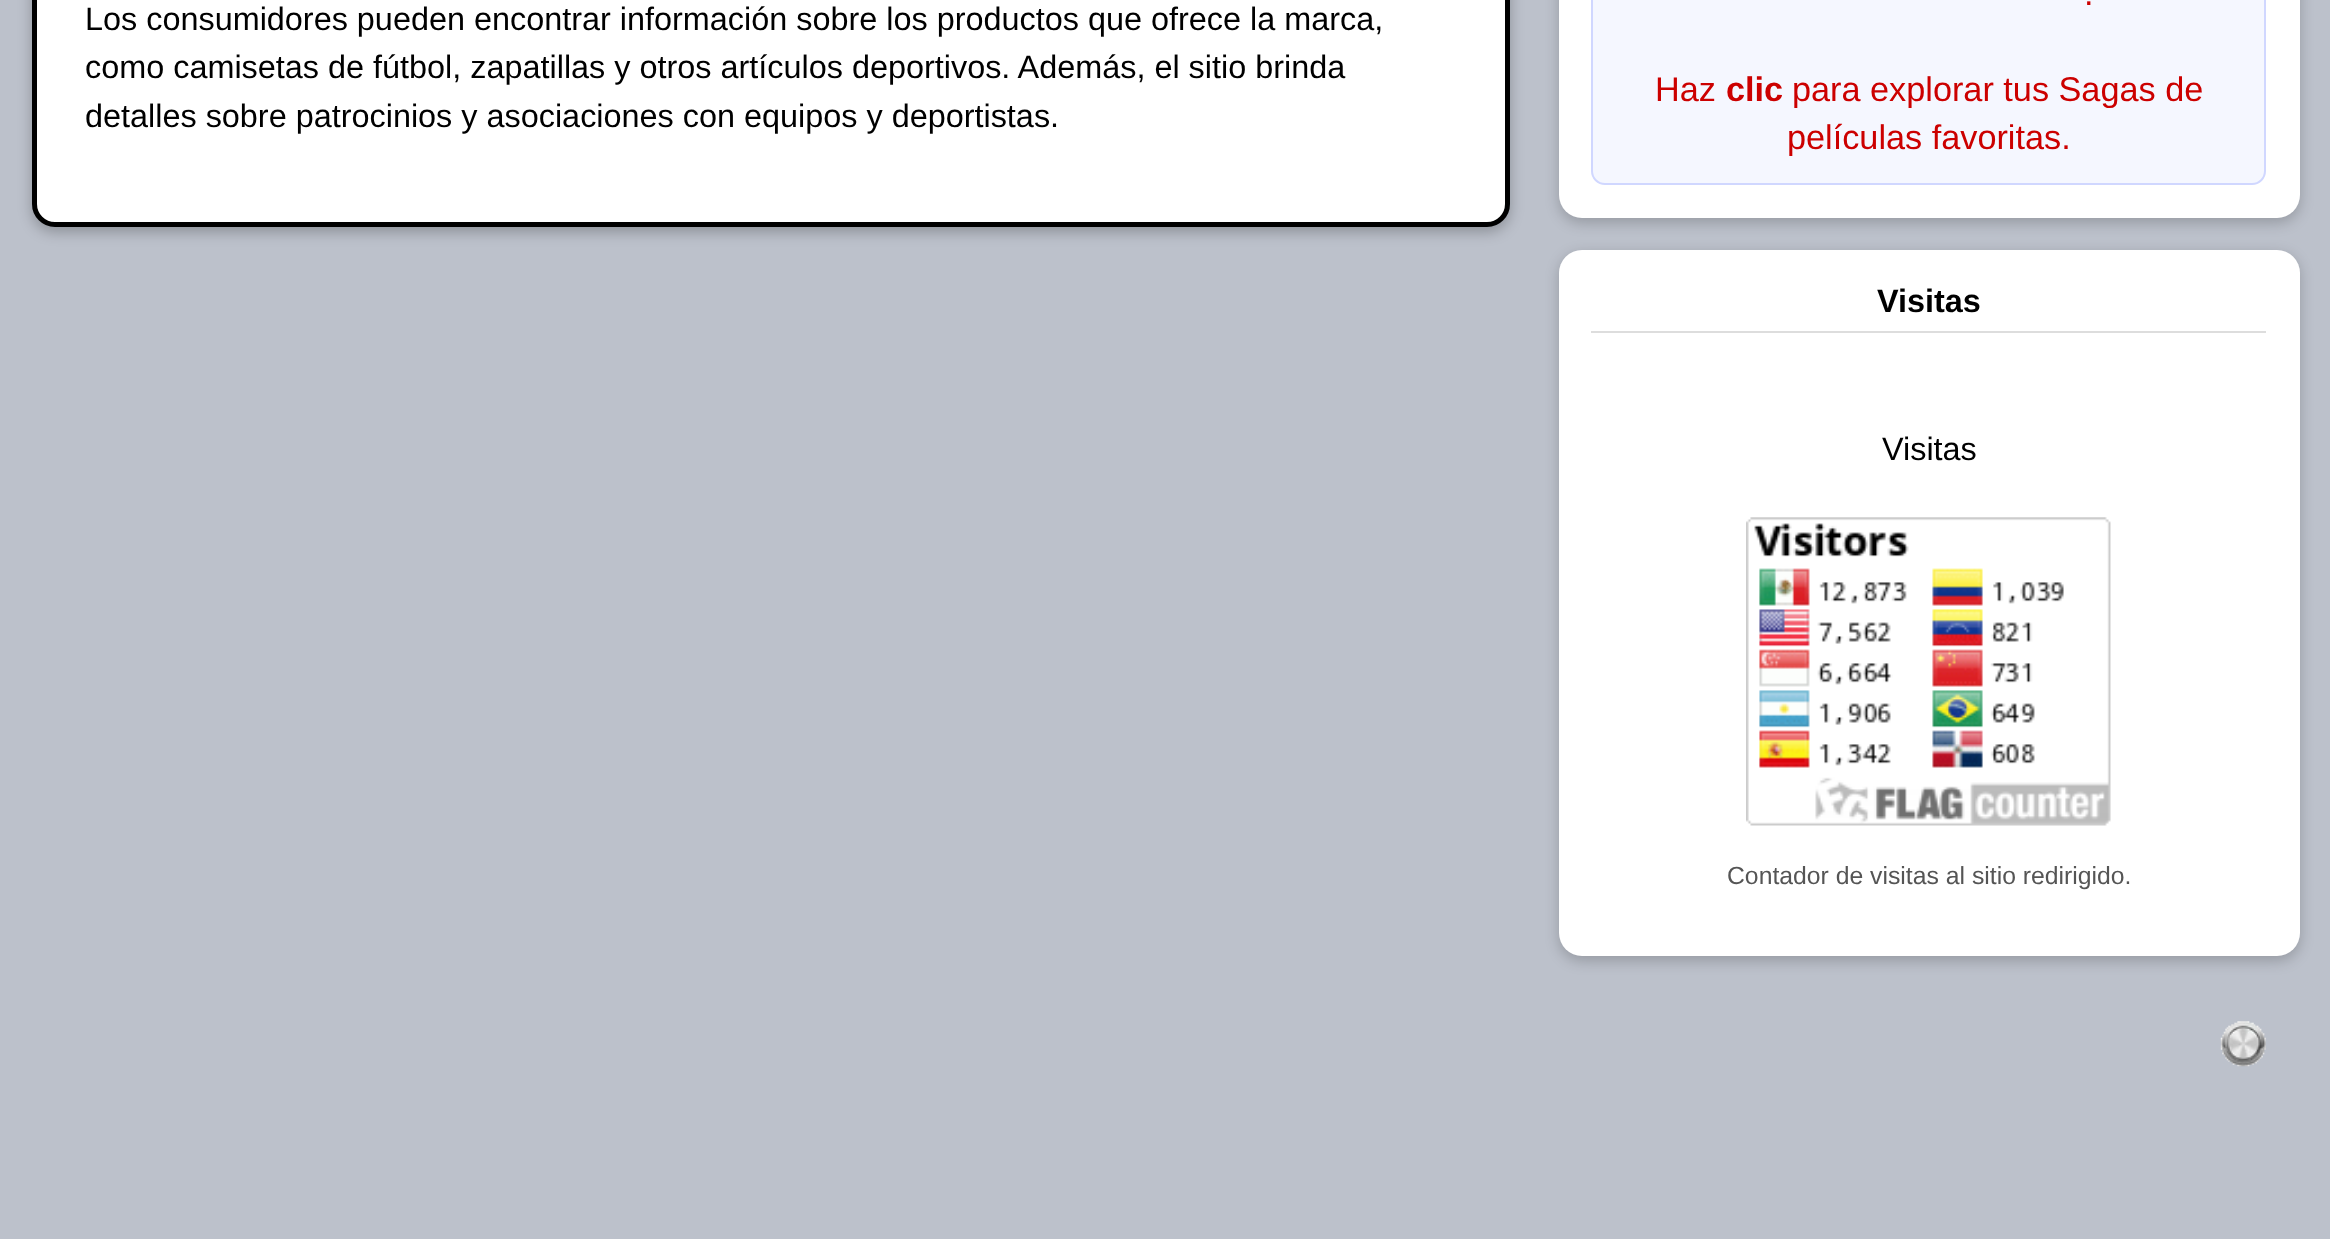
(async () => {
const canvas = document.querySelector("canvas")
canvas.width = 2330
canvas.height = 1239
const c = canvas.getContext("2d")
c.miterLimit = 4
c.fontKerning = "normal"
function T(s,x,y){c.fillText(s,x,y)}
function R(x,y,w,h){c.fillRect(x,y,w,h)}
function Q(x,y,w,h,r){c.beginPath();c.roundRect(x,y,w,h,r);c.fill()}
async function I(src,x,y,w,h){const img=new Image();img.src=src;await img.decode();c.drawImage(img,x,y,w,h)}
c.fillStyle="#bcc1cb"
R(0,0,2330,1239)
c.fillStyle="#00000040"
c.filter="blur(7px)"
c.beginPath()
c.roundRect(32,-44,1478,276,23)
c.fill()
c.filter="none"
c.fillStyle="#fff"
c.beginPath()
c.roundRect(34.5,-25.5,1473,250,20.5)
c.fill()
c.strokeStyle="#000"
c.lineWidth=5
c.stroke()
c.font="32.4px Liberation Sans"
c.fillStyle="#000"
T("Los consumidores pueden encontrar información sobre los productos que ofrece la marca,",85,30)
T("como camisetas de fútbol, zapatillas y otros artículos deportivos. Además, el sitio brinda",85,78)
T("detalles sobre patrocinios y asociaciones con equipos y deportistas.",85,127)
c.fillStyle="#00000033"
c.filter="blur(7px)"
c.beginPath()
c.roundRect(1559,-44,741,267,23)
c.fill()
c.filter="none"
c.fillStyle="#fff"
Q(1559,-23,741,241,23)
c.fillStyle="#f5f7ff"
c.beginPath()
c.roundRect(1592,-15,673,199,13)
c.fill()
c.strokeStyle="#d0d7ff"
c.lineWidth=2
c.stroke()
c.font="34.25px Liberation Sans"
c.fillStyle="#c00"
T(".",2084,5)
T("Haz",1655,101)
c.font="bold 34.25px Liberation Sans"
T("clic",1726,101)
c.font="34.25px Liberation Sans"
T("para explorar tus Sagas de",1792,101)
T("películas favoritas.",1787,149)
c.fillStyle="#00000033"
c.filter="blur(7px)"
c.beginPath()
c.roundRect(1559,254,741,707,23)
c.fill()
c.filter="none"
c.fillStyle="#fff"
Q(1559,250,741,706,23)
c.fillStyle="#ddd"
R(1591,331,675,2)
c.font="bold 32.4px Liberation Sans"
c.fillStyle="#000"
T("Visitas",1877,312)
c.font="32.4px Liberation Sans"
T("Visitas",1882,460)
await I("1.png",1746,517,365,309)
c.font="24.75px Liberation Sans"
c.fillStyle="#555"
T("Contador de visitas al sitio redirigido.",1727,884)
await I("2.png",2220,1021,46,46)
})()
